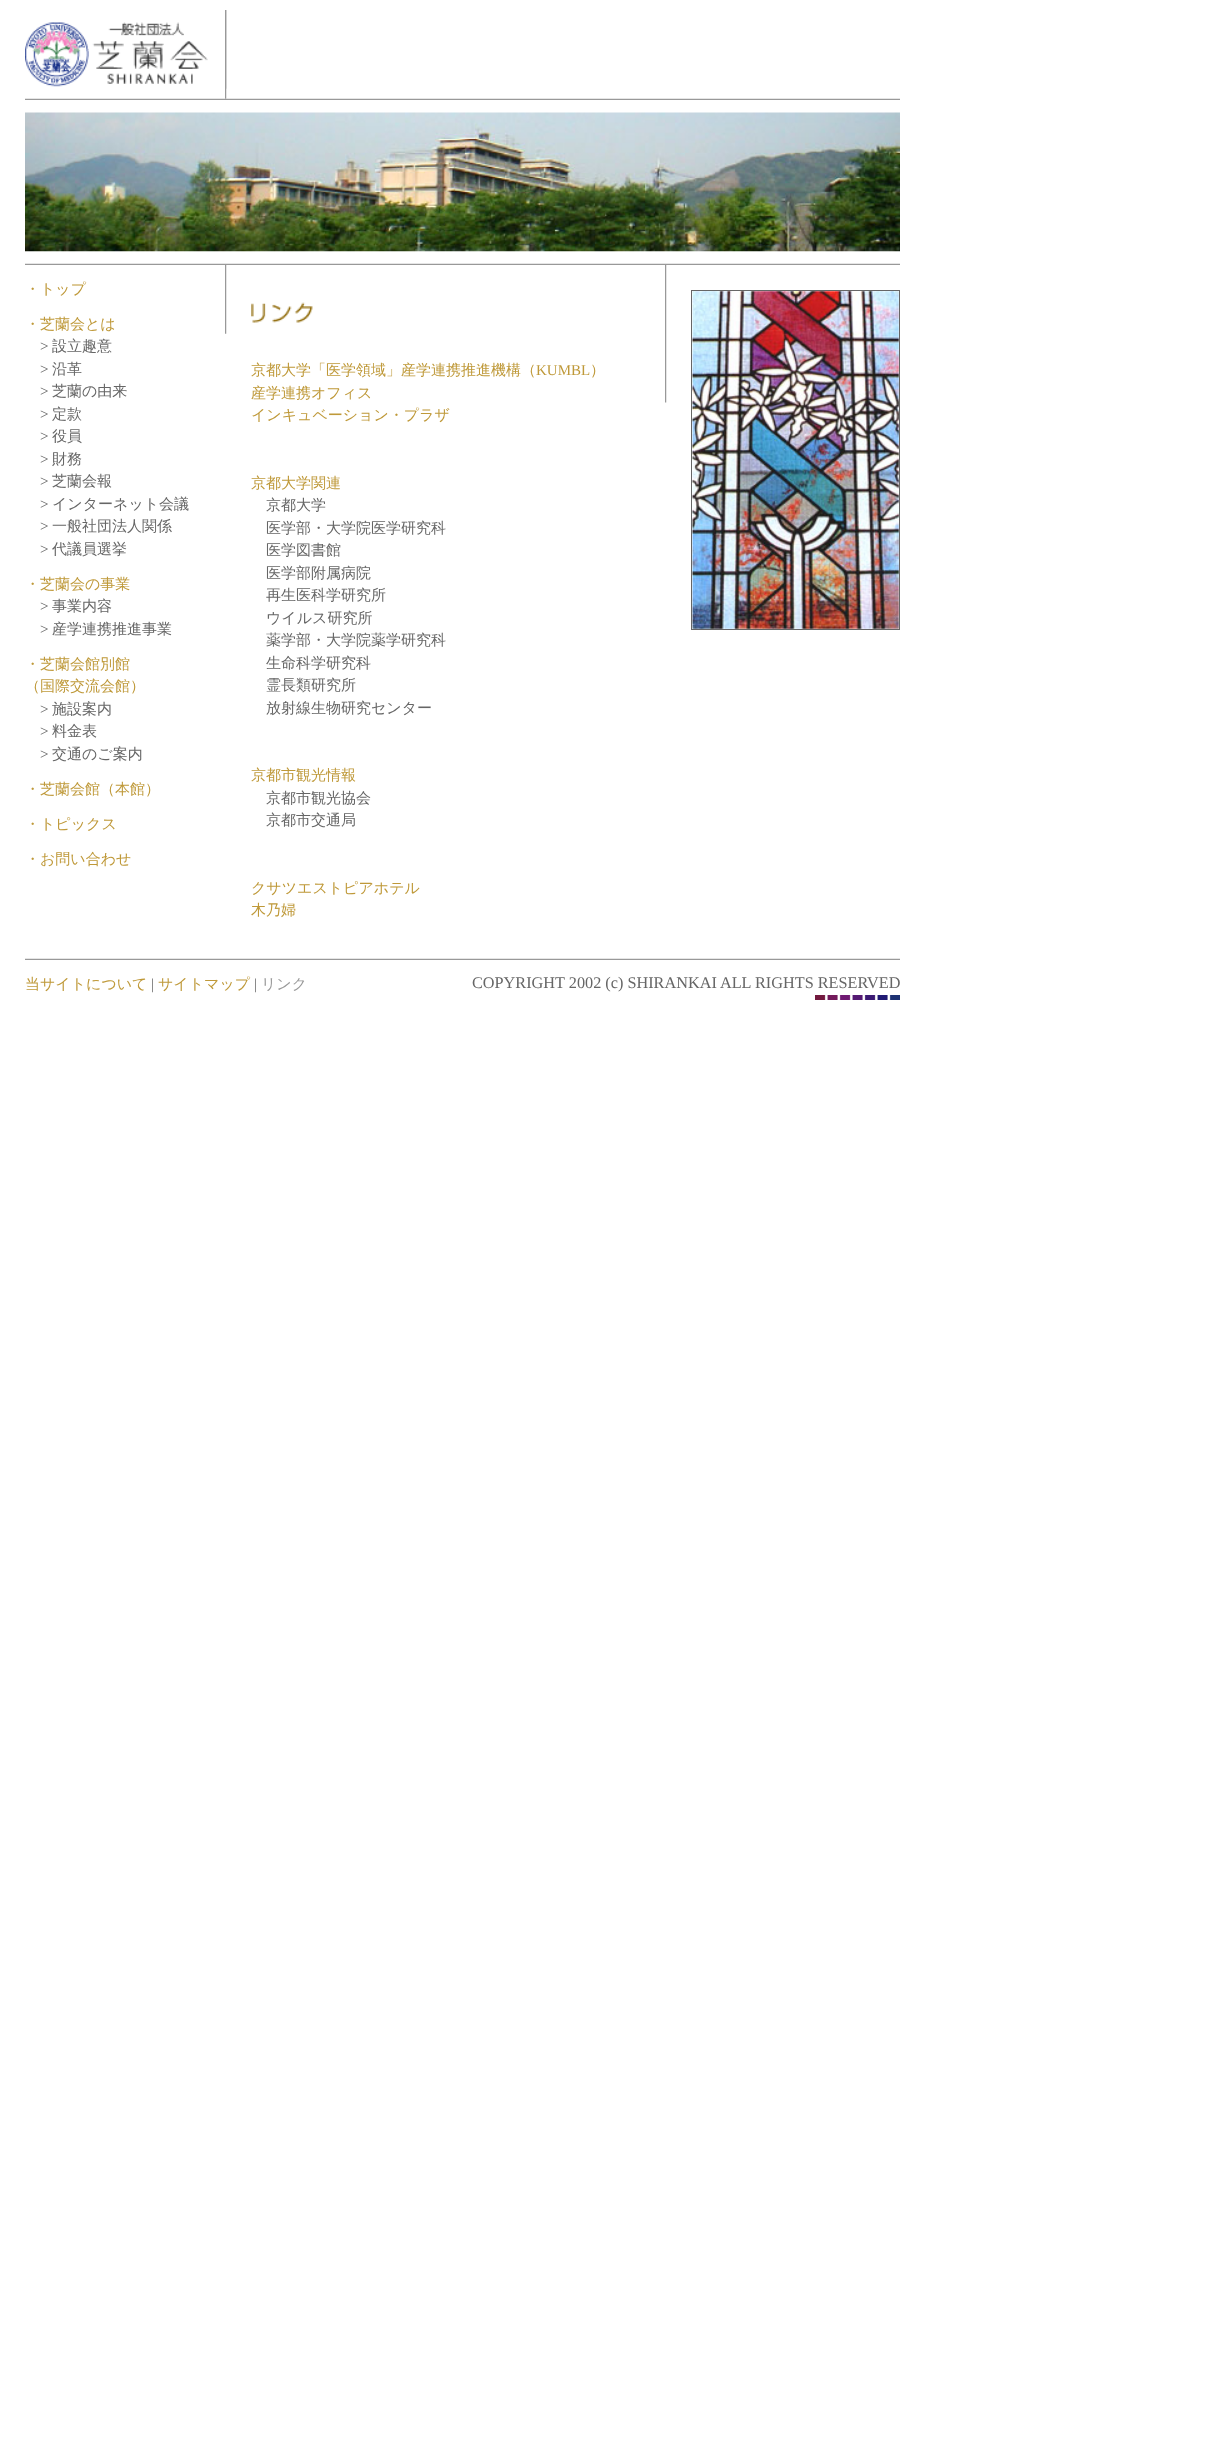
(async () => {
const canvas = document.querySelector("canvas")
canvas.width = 1209
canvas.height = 2463
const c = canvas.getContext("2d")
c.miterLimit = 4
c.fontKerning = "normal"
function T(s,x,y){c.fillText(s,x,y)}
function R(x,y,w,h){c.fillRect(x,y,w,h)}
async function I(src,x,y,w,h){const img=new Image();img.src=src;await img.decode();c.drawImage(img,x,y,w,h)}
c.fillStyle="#fff"
R(0,0,1209,2463)
await I("1.png",25,22,183,65)
await I("2.png",225,10,2,89)
await I("3.png",226,10,1,79)
await I("4.png",25,98,875,2)
await I("5.png",25,112,875,140)
await I("6.png",25,263,875,2)
c.font="500 15px WenQuanYi Zen Hei"
c.fillStyle="#bf9939"
T("・トップ",25,294)
T("・芝蘭会とは",25,329)
c.font="15px Liberation Serif"
c.fillStyle="#666"
T(">",40,351)
c.font="500 15px WenQuanYi Zen Hei"
T("設立趣意",52,351)
c.font="15px Liberation Serif"
T(">",40,374)
c.font="500 15px WenQuanYi Zen Hei"
T("沿革",52,374)
c.font="15px Liberation Serif"
T(">",40,396)
c.font="500 15px WenQuanYi Zen Hei"
T("芝蘭の由来",52,396)
c.font="15px Liberation Serif"
T(">",40,419)
c.font="500 15px WenQuanYi Zen Hei"
T("定款",52,419)
c.font="15px Liberation Serif"
T(">",40,441)
c.font="500 15px WenQuanYi Zen Hei"
T("役員",52,441)
c.font="15px Liberation Serif"
T(">",40,464)
c.font="500 15px WenQuanYi Zen Hei"
T("財務",52,464)
c.font="15px Liberation Serif"
T(">",40,486)
c.font="500 15px WenQuanYi Zen Hei"
T("芝蘭会報",52,486)
c.font="15px Liberation Serif"
T(">",40,509)
c.font="500 15px WenQuanYi Zen Hei"
T("インターネット会議",52,509)
c.font="15px Liberation Serif"
T(">",40,531)
c.font="500 15px WenQuanYi Zen Hei"
T("一般社団法人関係",52,531)
c.font="15px Liberation Serif"
T(">",40,554)
c.font="500 15px WenQuanYi Zen Hei"
T("代議員選挙",52,554)
c.fillStyle="#bf9939"
T("・芝蘭会の事業",25,589)
c.font="15px Liberation Serif"
c.fillStyle="#666"
T(">",40,611)
c.font="500 15px WenQuanYi Zen Hei"
T("事業内容",52,611)
c.font="15px Liberation Serif"
T(">",40,634)
c.font="500 15px WenQuanYi Zen Hei"
T("産学連携推進事業",52,634)
c.fillStyle="#bf9939"
T("・芝蘭会館別館",25,669)
T("（国際交流会館）",25,691)
c.font="15px Liberation Serif"
c.fillStyle="#666"
T(">",40,714)
c.font="500 15px WenQuanYi Zen Hei"
T("施設案内",52,714)
c.font="15px Liberation Serif"
T(">",40,736)
c.font="500 15px WenQuanYi Zen Hei"
T("料金表",52,736)
c.font="15px Liberation Serif"
T(">",40,759)
c.font="500 15px WenQuanYi Zen Hei"
T("交通のご案内",52,759)
c.fillStyle="#bf9939"
T("・芝蘭会館（本館）",25,794)
T("・トピックス",25,829)
T("・お問い合わせ",25,864)
await I("7.png",225,265,2,69)
await I("8.png",251,302,62,21)
T("京都大学「医学領域」産学連携推進機構（",251,375)
c.font="15px Liberation Serif"
T("KUMBL",536,375)
c.font="500 15px WenQuanYi Zen Hei"
T("）",590,375)
T("産学連携オフィス",251,398)
T("インキュベーション・プラザ",251,420)
T("京都大学関連",251,488)
c.fillStyle="#666"
T("京都大学",266,510)
T("医学部・大学院医学研究科",266,533)
T("医学図書館",266,555)
T("医学部附属病院",266,578)
T("再生医科学研究所",266,600)
T("ウイルス研究所",266,623)
T("薬学部・大学院薬学研究科",266,645)
T("生命科学研究科",266,668)
T("霊長類研究所",266,690)
T("放射線生物研究センター",266,713)
c.fillStyle="#bf9939"
T("京都市観光情報",251,780)
c.fillStyle="#666"
T("京都市観光協会",266,803)
T("京都市交通局",266,825)
c.fillStyle="#bf9939"
T("クサツエストピアホテル",251,893)
T("木乃婦",251,915)
await I("9.png",665,265,2,138)
c.strokeStyle="#666"
c.strokeRect(691.5,290.5,208,339)
await I("10.png",692,291,207,338)
await I("6.png",25,958,875,2)
T("当サイトについて",25,989)
c.font="15px Liberation Serif"
c.fillStyle="#666"
T("|",151,989)
c.font="500 15px WenQuanYi Zen Hei"
c.fillStyle="#bf9939"
T("サイトマップ",158,989)
c.font="15px Liberation Serif"
c.fillStyle="#666"
T("|",254,989)
c.font="500 15px WenQuanYi Zen Hei"
c.fillStyle="#999"
T("リンク",261,989)
c.font="16.25px Liberation Serif"
c.fillStyle="#666"
T("COPYRIGHT 2002 (c) SHIRANKAI ALL RIGHTS RESERVED",472,988)
await I("11.png",815,995,85,5)
})()
